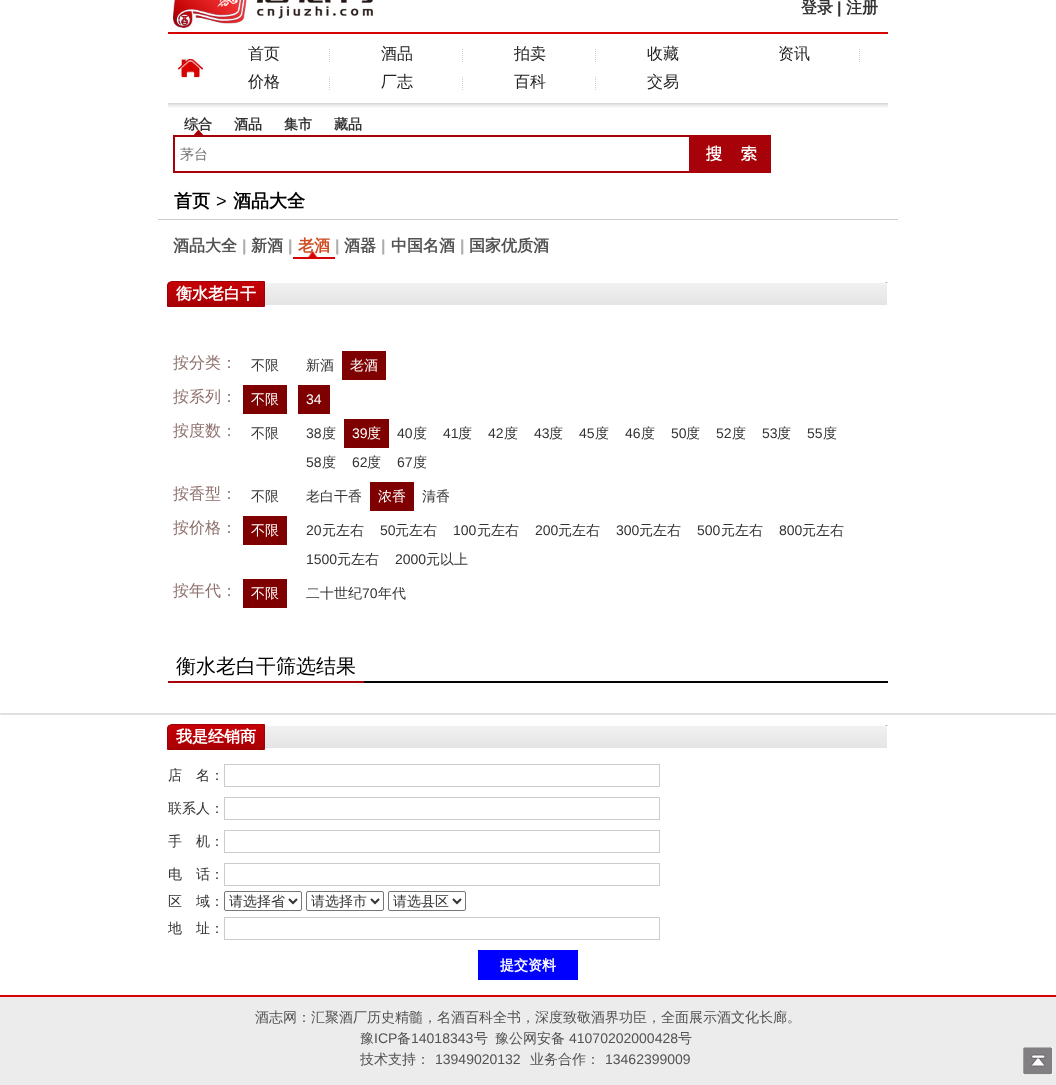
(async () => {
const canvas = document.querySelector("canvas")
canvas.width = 1056
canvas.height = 1085
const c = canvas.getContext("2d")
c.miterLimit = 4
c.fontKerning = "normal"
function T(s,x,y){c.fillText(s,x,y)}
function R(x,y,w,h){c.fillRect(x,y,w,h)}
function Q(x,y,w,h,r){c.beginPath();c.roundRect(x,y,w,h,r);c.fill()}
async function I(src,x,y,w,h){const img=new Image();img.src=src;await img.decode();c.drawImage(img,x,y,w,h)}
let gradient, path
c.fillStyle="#fff"
R(0,0,1056,1085)
c.fillStyle="#d60200"
R(168,32,720,2)
await I("1.png",173,0,200,28)
c.font="bold 16px WenQuanYi Zen Hei"
c.fillStyle="#333"
T("登录",801,13)
c.font="bold 16px Liberation Sans"
T("|",837,13)
c.font="bold 16px WenQuanYi Zen Hei"
T("注册",846,13)
await I("2.png",178,58,25,20)
await I("3.png",168,103,720,5)
c.font="500 16px WenQuanYi Zen Hei"
c.fillStyle="#222"
T("首页",248,59)
path = new Path2D("M329.5 49v13")
c.strokeStyle="#cecece"
c.setLineDash([1,1])
c.stroke(path)
T("酒品",381,59)
path = new Path2D("M462.5 49v13")
c.stroke(path)
T("拍卖",514,59)
path = new Path2D("M595.5 49v13")
c.stroke(path)
T("收藏",647,59)
T("资讯",778,59)
path = new Path2D("M859.5 49v13")
c.stroke(path)
T("价格",248,87)
path = new Path2D("M329.5 77v13")
c.stroke(path)
T("厂志",381,87)
path = new Path2D("M462.5 77v13")
c.stroke(path)
T("百科",514,87)
path = new Path2D("M595.5 77v13")
c.stroke(path)
T("交易",647,87)
await I("4.png",194,129,9,6)
c.font="bold 14px WenQuanYi Zen Hei"
c.fillStyle="#333"
T("综合",184,129)
T("酒品",234,129)
T("集市",284,129)
T("藏品",334,129)
c.strokeStyle="#a70209"
c.lineWidth=2
c.setLineDash([])
c.strokeRect(174,136,516,36)
c.font="500 14px WenQuanYi Zen Hei"
c.fillStyle="#757575"
T("茅台",180,159)
await I("5.png",691,135,80,38)
c.fillStyle="#ccc"
R(158,219,740,1)
c.font="bold 18px WenQuanYi Zen Hei"
c.fillStyle="#000"
T("首页",174,207)
c.font="18px Liberation Sans"
T(">",216,207)
c.font="bold 18px WenQuanYi Zen Hei"
T("酒品大全",233,207)
c.font="bold 16px WenQuanYi Zen Hei"
c.fillStyle="#515251"
T("酒品大全",173,251)
c.font="bold 16px Liberation Sans"
c.fillStyle="#aeadae"
T("|",242,251)
c.font="bold 16px WenQuanYi Zen Hei"
c.fillStyle="#515251"
T("新酒",251,251)
c.font="bold 16px Liberation Sans"
c.fillStyle="#aeadae"
T("|",288,251)
await I("6.png",293,251,42,8)
c.font="bold 16px WenQuanYi Zen Hei"
c.fillStyle="#ce4c21"
T("老酒",298,251)
c.font="bold 16px Liberation Sans"
c.fillStyle="#aeadae"
T("|",335,251)
c.font="bold 16px WenQuanYi Zen Hei"
c.fillStyle="#515251"
T("酒器",344,251)
c.font="bold 16px Liberation Sans"
c.fillStyle="#aeadae"
T("|",381,251)
c.font="bold 16px WenQuanYi Zen Hei"
c.fillStyle="#515251"
T("中国名酒",391,251)
c.font="bold 16px Liberation Sans"
c.fillStyle="#aeadae"
T("|",460,251)
c.font="bold 16px WenQuanYi Zen Hei"
c.fillStyle="#515251"
T("国家优质酒",469,251)
c.fillStyle="#1c1c1c"
c.filter="blur(0.5px)"
c.beginPath()
c.roundRect(168,282,720,24,3)
c.fill()
c.filter="none"
gradient = c.createLinearGradient(169,283,169,305)
gradient.addColorStop(0,"#f1f1f1")
gradient.addColorStop(1,"#e4e4e4")
c.fillStyle = gradient
R(265,283,623,22)
c.beginPath()
c.roundRect(168.5,282.5,719,23,[2.5,2.5,0,0])
c.strokeStyle="#fff"
c.lineWidth=1
c.stroke()
c.save()
c.beginPath()
c.roundRect(167,281,98,26,[5,0,0,0])
c.clip()
gradient = c.createLinearGradient(168,282,168,306)
gradient.addColorStop(0,"#c60006")
gradient.addColorStop(1,"#a70005")
c.fillStyle = gradient
R(167,282,97,24)
c.restore()
c.beginPath()
c.roundRect(167.5,281.5,97,25,[4.5,0,0,0])
c.strokeStyle="#a10004"
c.stroke()
c.fillStyle="#fff"
T("衡水老白干",176,299)
c.font="500 16px WenQuanYi Zen Hei"
c.fillStyle="#8f716e"
T("按分类：",173,368)
c.font="500 14px WenQuanYi Zen Hei"
c.fillStyle="#333"
T("不限",251,370)
T("新酒",306,370)
c.fillStyle="#7e0001"
R(342,351,44,29)
c.fillStyle="#fff"
T("老酒",350,370)
c.font="500 16px WenQuanYi Zen Hei"
c.fillStyle="#8f716e"
T("按系列：",173,402)
c.fillStyle="#7e0001"
R(243,385,44,29)
c.font="500 14px WenQuanYi Zen Hei"
c.fillStyle="#fff"
T("不限",251,404)
c.fillStyle="#7e0001"
R(298,385,32,29)
c.font="14px Liberation Sans"
c.fillStyle="#fff"
T("34",306,404)
c.font="500 16px WenQuanYi Zen Hei"
c.fillStyle="#8f716e"
T("按度数：",173,436)
c.font="500 14px WenQuanYi Zen Hei"
c.fillStyle="#333"
T("不限",251,438)
c.font="14px Liberation Sans"
T("38",306,438)
c.font="500 14px WenQuanYi Zen Hei"
T("度",322,438)
c.fillStyle="#7e0001"
R(344,419,45,29)
c.font="14px Liberation Sans"
c.fillStyle="#fff"
T("39",352,438)
c.font="500 14px WenQuanYi Zen Hei"
T("度",367,438)
c.font="14px Liberation Sans"
c.fillStyle="#333"
T("40",397,438)
c.font="500 14px WenQuanYi Zen Hei"
T("度",413,438)
c.font="14px Liberation Sans"
T("41",443,438)
c.font="500 14px WenQuanYi Zen Hei"
T("度",458,438)
c.font="14px Liberation Sans"
T("42",488,438)
c.font="500 14px WenQuanYi Zen Hei"
T("度",504,438)
c.font="14px Liberation Sans"
T("43",534,438)
c.font="500 14px WenQuanYi Zen Hei"
T("度",549,438)
c.font="14px Liberation Sans"
T("45",579,438)
c.font="500 14px WenQuanYi Zen Hei"
T("度",595,438)
c.font="14px Liberation Sans"
T("46",625,438)
c.font="500 14px WenQuanYi Zen Hei"
T("度",641,438)
c.font="14px Liberation Sans"
T("50",671,438)
c.font="500 14px WenQuanYi Zen Hei"
T("度",686,438)
c.font="14px Liberation Sans"
T("52",716,438)
c.font="500 14px WenQuanYi Zen Hei"
T("度",732,438)
c.font="14px Liberation Sans"
T("53",762,438)
c.font="500 14px WenQuanYi Zen Hei"
T("度",777,438)
c.font="14px Liberation Sans"
T("55",807,438)
c.font="500 14px WenQuanYi Zen Hei"
T("度",823,438)
c.font="14px Liberation Sans"
T("58",306,467)
c.font="500 14px WenQuanYi Zen Hei"
T("度",322,467)
c.font="14px Liberation Sans"
T("62",352,467)
c.font="500 14px WenQuanYi Zen Hei"
T("度",367,467)
c.font="14px Liberation Sans"
T("67",397,467)
c.font="500 14px WenQuanYi Zen Hei"
T("度",413,467)
c.font="500 16px WenQuanYi Zen Hei"
c.fillStyle="#8f716e"
T("按香型：",173,499)
c.font="500 14px WenQuanYi Zen Hei"
c.fillStyle="#333"
T("不限",251,501)
T("老白干香",306,501)
c.fillStyle="#7e0001"
R(370,482,44,29)
c.fillStyle="#fff"
T("浓香",378,501)
c.fillStyle="#333"
T("清香",422,501)
c.font="500 16px WenQuanYi Zen Hei"
c.fillStyle="#8f716e"
T("按价格：",173,533)
c.fillStyle="#7e0001"
R(243,516,44,29)
c.font="500 14px WenQuanYi Zen Hei"
c.fillStyle="#fff"
T("不限",251,535)
c.font="14px Liberation Sans"
c.fillStyle="#333"
T("20",306,535)
c.font="500 14px WenQuanYi Zen Hei"
T("元左右",322,535)
c.font="14px Liberation Sans"
T("50",380,535)
c.font="500 14px WenQuanYi Zen Hei"
T("元左右",395,535)
c.font="14px Liberation Sans"
T("100",453,535)
c.font="500 14px WenQuanYi Zen Hei"
T("元左右",477,535)
c.font="14px Liberation Sans"
T("200",535,535)
c.font="500 14px WenQuanYi Zen Hei"
T("元左右",558,535)
c.font="14px Liberation Sans"
T("300",616,535)
c.font="500 14px WenQuanYi Zen Hei"
T("元左右",639,535)
c.font="14px Liberation Sans"
T("500",697,535)
c.font="500 14px WenQuanYi Zen Hei"
T("元左右",721,535)
c.font="14px Liberation Sans"
T("800",779,535)
c.font="500 14px WenQuanYi Zen Hei"
T("元左右",802,535)
c.font="14px Liberation Sans"
T("1500",306,564)
c.font="500 14px WenQuanYi Zen Hei"
T("元左右",337,564)
c.font="14px Liberation Sans"
T("2000",395,564)
c.font="500 14px WenQuanYi Zen Hei"
T("元以上",426,564)
c.font="500 16px WenQuanYi Zen Hei"
c.fillStyle="#8f716e"
T("按年代：",173,596)
c.fillStyle="#7e0001"
R(243,579,44,29)
c.font="500 14px WenQuanYi Zen Hei"
c.fillStyle="#fff"
T("不限",251,598)
c.fillStyle="#333"
T("二十世纪",306,598)
c.font="14px Liberation Sans"
T("70",362,598)
c.font="500 14px WenQuanYi Zen Hei"
T("年代",378,598)
c.fillStyle="#040404"
R(364,681,524,2)
c.fillStyle="#a70209"
R(168,681,196,2)
c.font="500 20px WenQuanYi Zen Hei"
c.fillStyle="#000"
T("衡水老白干筛选结果",176,673)
await I("7.png",0,714,1056,1)
c.fillStyle="#e0e0e0"
Q(0,713,1056,2,1)
c.fillStyle="#1c1c1c"
c.filter="blur(0.5px)"
c.beginPath()
c.roundRect(168,725,720,24,3)
c.fill()
c.filter="none"
gradient = c.createLinearGradient(169,726,169,748)
gradient.addColorStop(0,"#f1f1f1")
gradient.addColorStop(1,"#e4e4e4")
c.fillStyle = gradient
R(265,726,623,22)
c.beginPath()
c.roundRect(168.5,725.5,719,23,[2.5,2.5,0,0])
c.strokeStyle="#fff"
c.stroke()
c.save()
c.beginPath()
c.roundRect(167,724,98,26,[5,0,0,0])
c.clip()
gradient = c.createLinearGradient(168,725,168,749)
gradient.addColorStop(0,"#c60006")
gradient.addColorStop(1,"#a70005")
c.fillStyle = gradient
R(167,725,97,24)
c.restore()
c.beginPath()
c.roundRect(167.5,724.5,97,25,[4.5,0,0,0])
c.strokeStyle="#a10004"
c.stroke()
c.font="bold 16px WenQuanYi Zen Hei"
c.fillStyle="#fff"
T("我是经销商",176,742)
c.font="500 14px WenQuanYi Zen Hei"
c.fillStyle="#333"
T("店　名：",168,780)
c.strokeStyle="#ccc"
c.strokeRect(224.5,764.5,435,22)
T("联系人：",168,813)
c.strokeRect(224.5,797.5,435,22)
T("手　机：",168,846)
c.strokeRect(224.5,830.5,435,22)
T("电　话：",168,879)
c.strokeRect(224.5,863.5,435,22)
T("区　域：",168,906)
c.beginPath()
c.roundRect(224.5,891.5,77,19,1.5)
c.strokeStyle="#767676"
c.stroke()
path = new Path2D("M289 899l4 4l4-4")
c.strokeStyle="#333"
c.lineWidth=2
c.stroke(path)
T("请选择省",229,906)
c.beginPath()
c.roundRect(306.5,891.5,77,19,1.5)
c.strokeStyle="#767676"
c.lineWidth=1
c.stroke()
path = new Path2D("M371 899l4 4l4-4")
c.strokeStyle="#333"
c.lineWidth=2
c.stroke(path)
T("请选择市",311,906)
c.beginPath()
c.roundRect(388.5,891.5,77,19,1.5)
c.strokeStyle="#767676"
c.lineWidth=1
c.stroke()
path = new Path2D("M453 899l4 4l4-4")
c.strokeStyle="#333"
c.lineWidth=2
c.stroke(path)
T("请选县区",393,906)
T("地　址：",168,933)
c.strokeStyle="#ccc"
c.lineWidth=1
c.strokeRect(224.5,917.5,435,22)
c.fillStyle="#00f"
R(478,950,100,30)
c.font="bold 14px WenQuanYi Zen Hei"
c.fillStyle="#fff"
T("提交资料",500,970)
c.fillStyle="#ececec"
R(0,997,1056,88)
c.fillStyle="#d60200"
R(0,995,1056,2)
c.font="500 14px WenQuanYi Zen Hei"
c.fillStyle="#515251"
T("酒志网：汇聚酒厂历史精髓，名酒百科全书，深度致敬酒界功臣，全面展示酒文化长廊。",255,1022)
T("豫",360,1043)
c.font="14px Liberation Sans"
T("ICP",374,1043)
c.font="500 14px WenQuanYi Zen Hei"
T("备",397,1043)
c.font="14px Liberation Sans"
T("14018343",411,1043)
c.font="500 14px WenQuanYi Zen Hei"
T("号",474,1043)
T("豫公网安备",495,1043)
c.font="14px Liberation Sans"
T("41070202000428",569,1043)
c.font="500 14px WenQuanYi Zen Hei"
T("号",678,1043)
T("技术支持：",360,1064)
c.font="14px Liberation Sans"
T("13949020132",435,1064)
c.font="500 14px WenQuanYi Zen Hei"
T("业务合作：",530,1064)
c.font="14px Liberation Sans"
T("13462399009",605,1064)
await I("8.png",1023,1047,30,28)
})()
